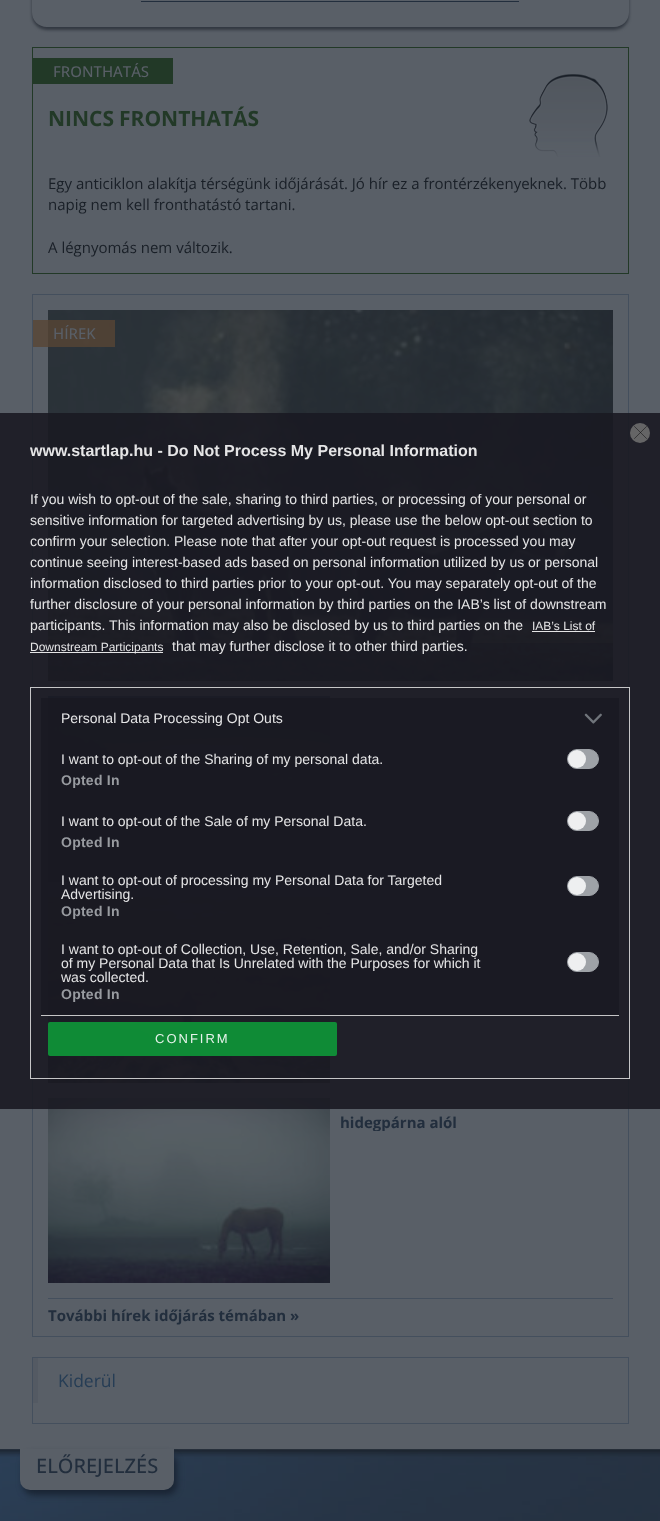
(async () => {
const canvas = document.querySelector("canvas")
canvas.width = 660
canvas.height = 1521
const c = canvas.getContext("2d")
c.miterLimit = 4
c.fontKerning = "normal"
function T(s,x,y){c.fillText(s,x,y)}
function R(x,y,w,h){c.fillRect(x,y,w,h)}
function Q(x,y,w,h,r){c.beginPath();c.roundRect(x,y,w,h,r);c.fill()}
async function I(src,x,y,w,h){const img=new Image();img.src=src;await img.decode();c.drawImage(img,x,y,w,h)}
let path
c.fillStyle="#595f67"
R(0,0,660,1521)
c.save()
path = new Path2D("M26 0h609v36h-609zm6-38h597v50c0 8.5-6.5 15-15 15h-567c-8.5 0-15-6.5-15-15z")
c.clip(path,"evenodd")
c.fillStyle="#323841"
c.filter="blur(1.5px)"
c.beginPath()
c.roundRect(32,-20,597,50,15)
c.fill()
c.filter="none"
c.restore()
c.fillStyle="#222e3d"
R(141,1,378,1)
c.strokeStyle="#223927"
c.strokeRect(32.5,47.5,596,226)
c.fillStyle="#223927"
R(33,58,140,26)
c.font="500 15px Open Sans"
c.fillStyle="#595f67"
T("FRONTHATÁS",53,77)
c.font="bold 21px Open Sans"
c.fillStyle="#223927"
T("NINCS",48,126)
T("FRONTHATÁS",119,126)
await I("1.png",529,74,79,83)
c.font="15px Open Sans"
c.fillStyle="#191f27"
T("Egy anticiklon alakítja térségünk időjárását. Jó hír ez a frontérzékenyeknek. Több",48,189)
T("napig nem kell fronthatástó tartani.",48,210)
T("A légnyomás nem változik.",48,253)
c.strokeStyle="#444f5d"
c.strokeRect(32.5,294.5,596,1042)
await I("2.png",48,310,565,371)
c.fillStyle="#584534cc"
R(33,320,82,27)
c.font="500 15px Open Sans"
c.fillStyle="#595f67"
T("HÍREK",53,339)
c.fillStyle="#191f2799"
R(48,643,565,38)
await I("3.png",48,696,282,186)
await I("4.png",48,897,282,186)
await I("5.png",48,1098,282,185)
c.save()
c.beginPath()
c.rect(340,1098,273,33)
c.clip()
c.font="bold 15px Open Sans"
c.fillStyle="#222e3d"
T("hidegpárna alól",340,1128)
c.restore()
c.fillStyle="#444f5d"
R(48,1298,565,1)
c.font="bold 15px Open Sans"
c.fillStyle="#222e3d"
T("További hírek időjárás témában »",48,1321)
c.strokeRect(32.5,1357.5,596,66)
c.fillStyle="#545a63"
R(33,1358,5,45)
c.font="17.5px Open Sans"
c.fillStyle="#263d55"
T("Kiderül",58,1387)
c.fillStyle="#191922e6"
R(0,413,660,696)
c.fillStyle="#656566"
c.beginPath()
c.arc(640,433,10,0,7)
c.fill()
path = new Path2D("M634.5 426.5l12 12m0-12l-12 12")
c.strokeStyle="#09090a"
c.lineWidth=0.5
c.lineCap="round"
c.lineJoin="round"
c.stroke(path)
c.font="bold 16px Liberation Sans"
c.fillStyle="#e5e5e6"
T("www.startlap.hu - Do Not Process My Personal Information",30,456)
c.font="14px Liberation Sans"
T("If you wish to opt-out of the sale, sharing to third parties, or processing of your personal or",30,504)
T("sensitive information for targeted advertising by us, please use the below opt-out section to",30,525)
T("confirm your selection. Please note that after your opt-out request is processed you may",30,546)
T("continue seeing interest-based ads based on personal information utilized by us or personal",30,567)
T("information disclosed to third parties prior to your opt-out. You may separately opt-out of the",30,588)
T("further disclosure of your personal information by third parties on the IAB’s list of downstream",30,609)
T("participants. This information may also be disclosed by us to third parties on the",30,630)
c.font="12px Liberation Sans"
T("IAB’s List of",532,630)
R(532,631,63,1)
c.fillStyle="#fbfbfbe6"
R(30,652,133,1)
c.fillStyle="#e5e5e6"
T("Downstream Participants",30,651)
c.font="14px Liberation Sans"
T("that may further disclose it to other third parties.",172,651)
c.strokeStyle="#d8d8d8e6"
c.lineWidth=1
c.lineJoin="miter"
c.strokeRect(30.5,687.5,599,391)
c.fillStyle="#191922e6"
R(41,698,578,317)
c.fillStyle="#c5c5c6"
R(41,1015,578,1)
c.fillStyle="#e5e5e6"
T("Personal Data Processing Opt Outs",61,723)
await I("6.png",584,713,18,11)
T("I want to opt-out of the Sharing of my personal data.",61,764)
c.fillStyle="#9ea2a7"
c.beginPath()
c.roundRect(567.5,749.5,31,19,9.5)
c.fill()
c.strokeStyle="#9ea2a7"
c.stroke()
c.fillStyle="#eeeff0"
c.beginPath()
c.arc(577,759,9,0,7)
c.fill()
c.letterSpacing="0.25px"
c.font="bold 14px Liberation Sans"
c.fillStyle="#989ba0"
T("Opted In",61,785)
c.letterSpacing="0px"
c.font="14px Liberation Sans"
c.fillStyle="#e5e5e6"
T("I want to opt-out of the Sale of my Personal Data.",61,826)
c.fillStyle="#9ea2a7"
c.beginPath()
c.roundRect(567.5,811.5,31,19,9.5)
c.fill()
c.stroke()
c.fillStyle="#eeeff0"
c.beginPath()
c.arc(577,821,9,0,7)
c.fill()
c.letterSpacing="0.25px"
c.font="bold 14px Liberation Sans"
c.fillStyle="#989ba0"
T("Opted In",61,847)
c.letterSpacing="0px"
c.font="14px Liberation Sans"
c.fillStyle="#e5e5e6"
T("I want to opt-out of processing my Personal Data for Targeted",61,885)
T("Advertising.",61,899)
c.fillStyle="#9ea2a7"
c.beginPath()
c.roundRect(567.5,876.5,31,19,9.5)
c.fill()
c.stroke()
c.fillStyle="#eeeff0"
c.beginPath()
c.arc(577,886,9,0,7)
c.fill()
c.letterSpacing="0.25px"
c.font="bold 14px Liberation Sans"
c.fillStyle="#989ba0"
T("Opted In",61,916)
c.letterSpacing="0px"
c.font="14px Liberation Sans"
c.fillStyle="#e5e5e6"
T("I want to opt-out of Collection, Use, Retention, Sale, and/or Sharing",61,954)
T("of my Personal Data that Is Unrelated with the Purposes for which it",61,968)
T("was collected.",61,982)
c.fillStyle="#9ea2a7"
c.beginPath()
c.roundRect(567.5,952.5,31,19,9.5)
c.fill()
c.stroke()
c.fillStyle="#eeeff0"
c.beginPath()
c.arc(577,962,9,0,7)
c.fill()
c.letterSpacing="0.25px"
c.font="bold 14px Liberation Sans"
c.fillStyle="#989ba0"
T("Opted In",61,999)
c.fillStyle="#0e9839e6"
Q(48,1022,289,34,2)
c.letterSpacing="2px"
c.font="13px Liberation Sans"
c.fillStyle="#e7f3eb"
T("CONFIRM",155,1043)
await I("7.png",0,1449,660,72)
c.fillStyle="#192433"
c.filter="blur(3px)"
c.beginPath()
c.roundRect(23,1454,154,41,10)
c.fill()
c.filter="none"
c.fillStyle="#595f67"
c.beginPath()
c.roundRect(20,1449,154,41,[0,0,10,10])
c.fill()
c.letterSpacing="0px"
c.font="500 20px Open Sans"
c.fillStyle="#222e3d"
T("ELŐREJELZÉS",36,1473)
})()
